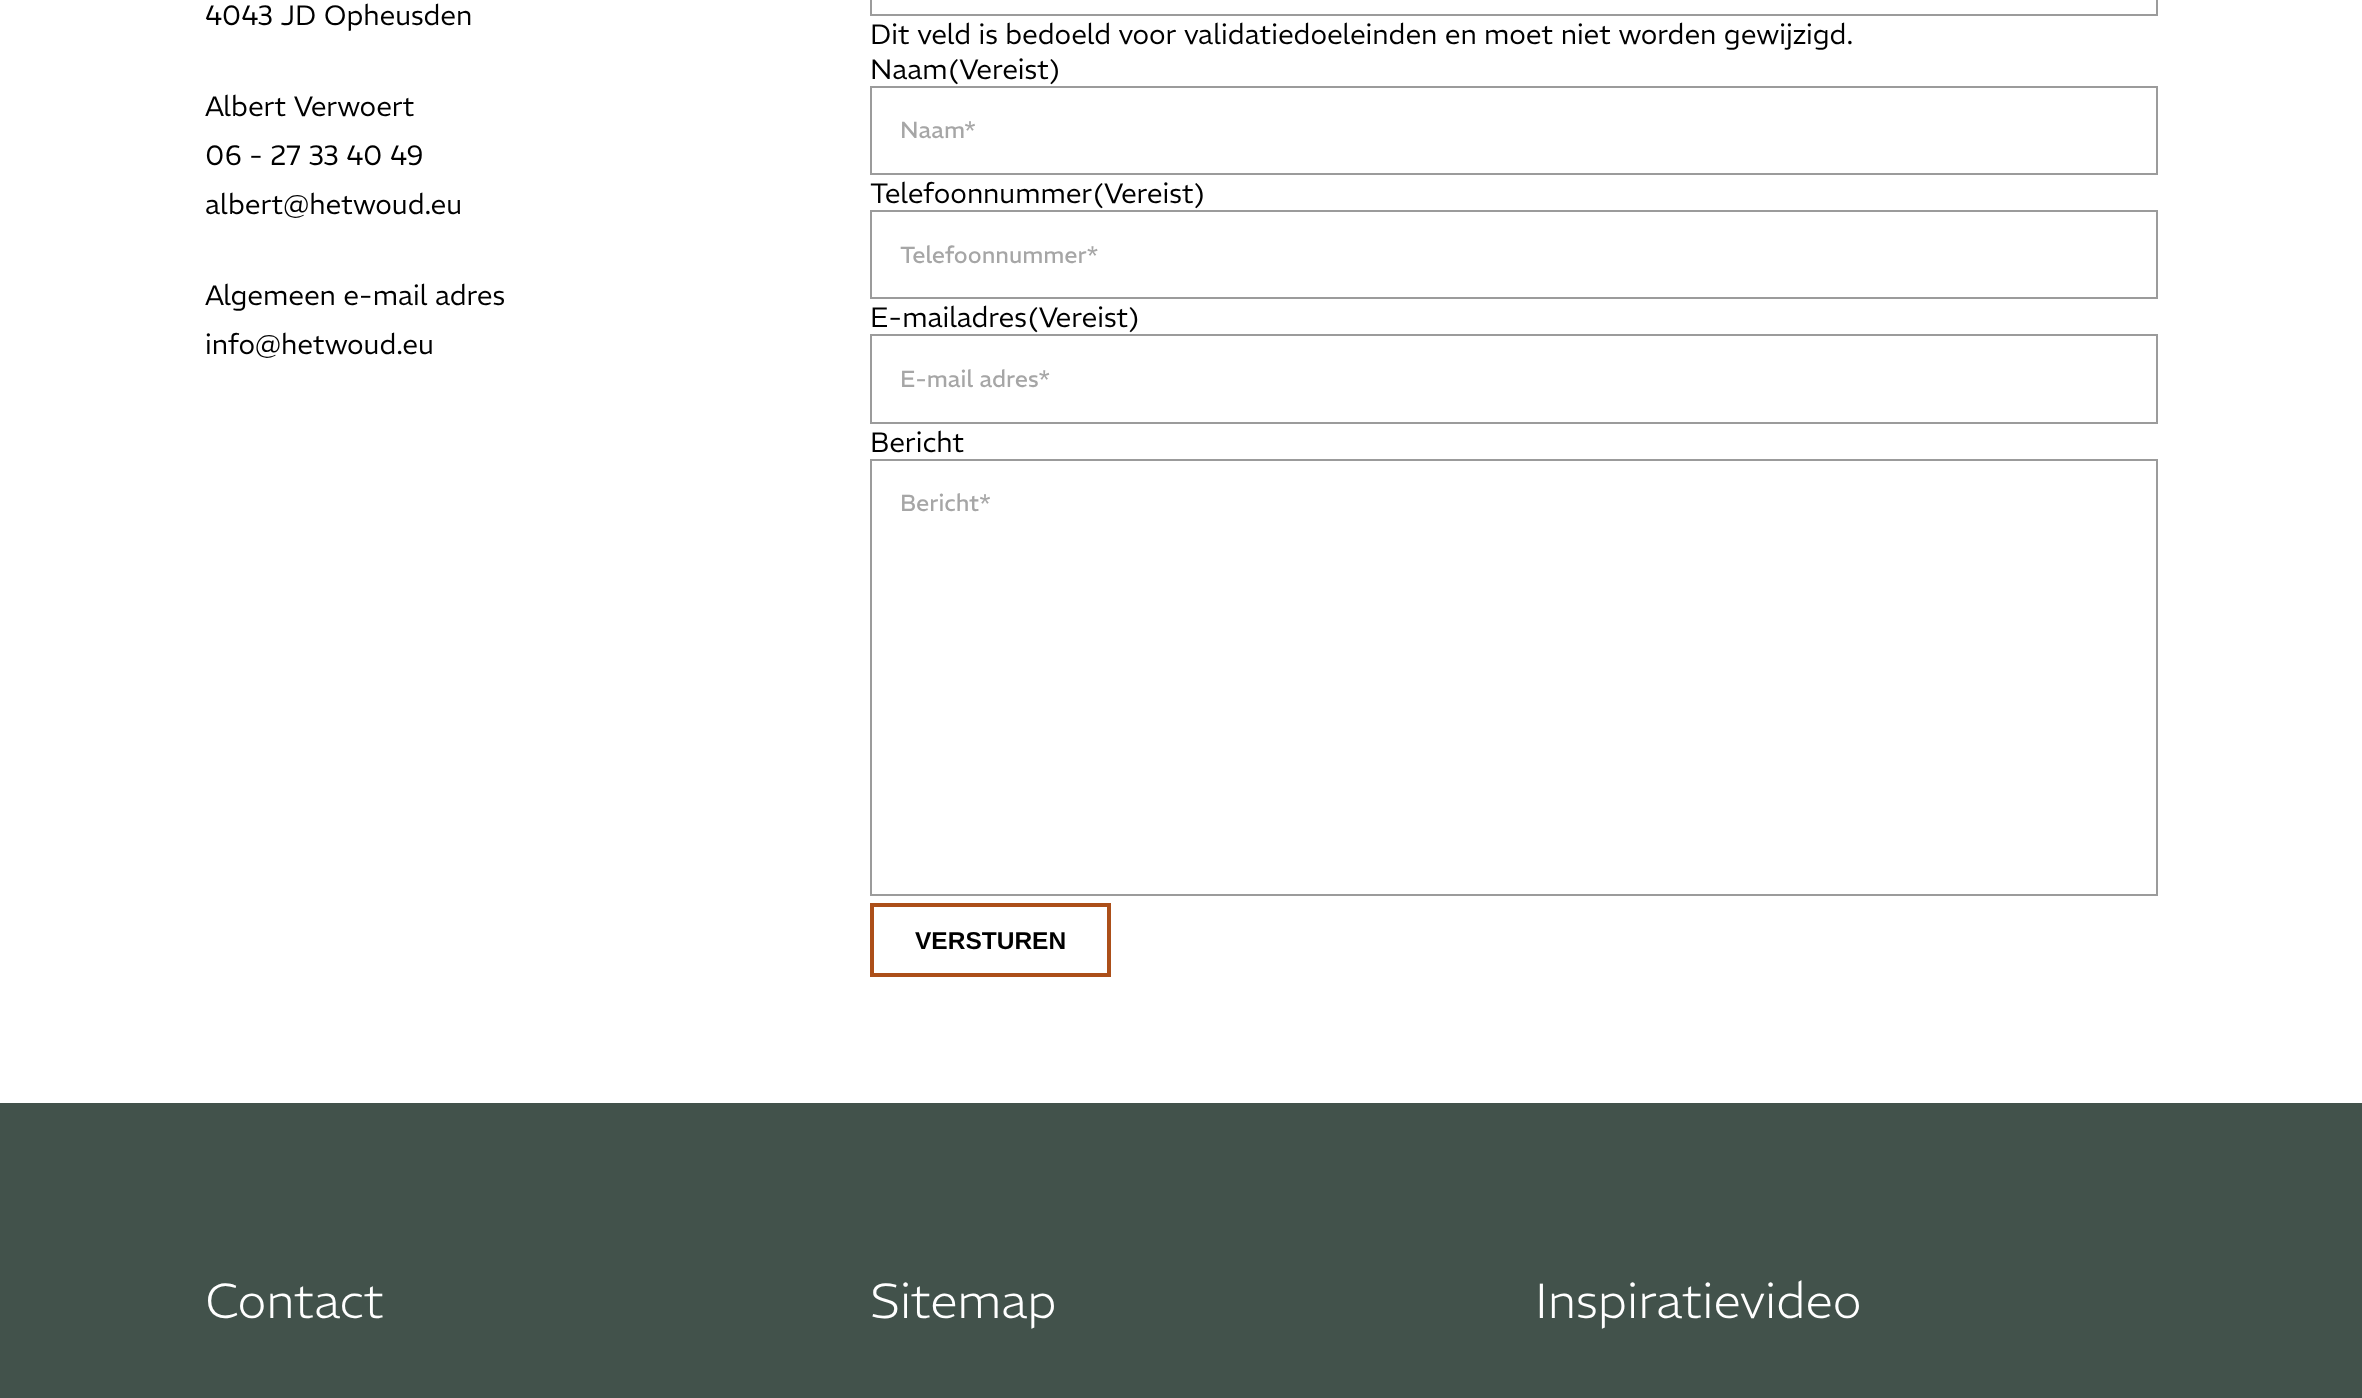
(async () => {
const canvas = document.querySelector("canvas")
canvas.width = 2362
canvas.height = 1398
const c = canvas.getContext("2d")
c.miterLimit = 4
c.fontKerning = "normal"
function T(s,x,y){c.fillText(s,x,y)}
function R(x,y,w,h){c.fillRect(x,y,w,h)}
c.fillStyle="#fff"
R(0,0,2362,1398)
c.font="300 28px REM"
c.fillStyle="#000"
T("4043 JD Opheusden",205,25)
T("Albert Verwoert",205,116)
T("06 - 27 33 40 49",205,165)
T("albert@hetwoud.eu",205,214)
T("Algemeen e-mail adres",205,305)
T("info@hetwoud.eu",205,354)
c.strokeStyle="#9b9b9b"
c.lineWidth=2
c.strokeRect(871,-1,1286,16)
T("Dit veld is bedoeld voor validatiedoeleinden en moet niet worden gewijzigd.",870,44)
T("Naam(Vereist)",870,79)
c.strokeRect(871,87,1286,87)
c.font="23.25px REM"
c.fillStyle="#a6a6a6"
T("Naam*",900,138)
c.font="300 28px REM"
c.fillStyle="#000"
T("Telefoonnummer(Vereist)",870,203)
c.strokeRect(871,211,1286,87)
c.font="23.25px REM"
c.fillStyle="#a6a6a6"
T("Telefoonnummer*",900,263)
c.font="300 28px REM"
c.fillStyle="#000"
T("E-mailadres(Vereist)",870,327)
c.strokeRect(871,335,1286,88)
c.font="23.25px REM"
c.fillStyle="#a6a6a6"
T("E-mail adres*",900,387)
c.font="300 28px REM"
c.fillStyle="#000"
T("Bericht",870,452)
c.strokeRect(871,460,1286,435)
c.font="23.25px REM"
c.fillStyle="#a6a6a6"
T("Bericht*",900,511)
c.strokeStyle="#ac4f19"
c.lineWidth=4
c.strokeRect(872,905,237,70)
c.font="bold 24.5px Liberation Sans"
c.fillStyle="#000"
T("VERSTUREN",915,949)
c.fillStyle="#42524b"
R(0,1103,2362,295)
c.font="200 49px REM"
c.fillStyle="#fff"
T("Contact",205,1318)
T("Sitemap",870,1318)
T("Inspiratievideo",1535,1318)
})()
